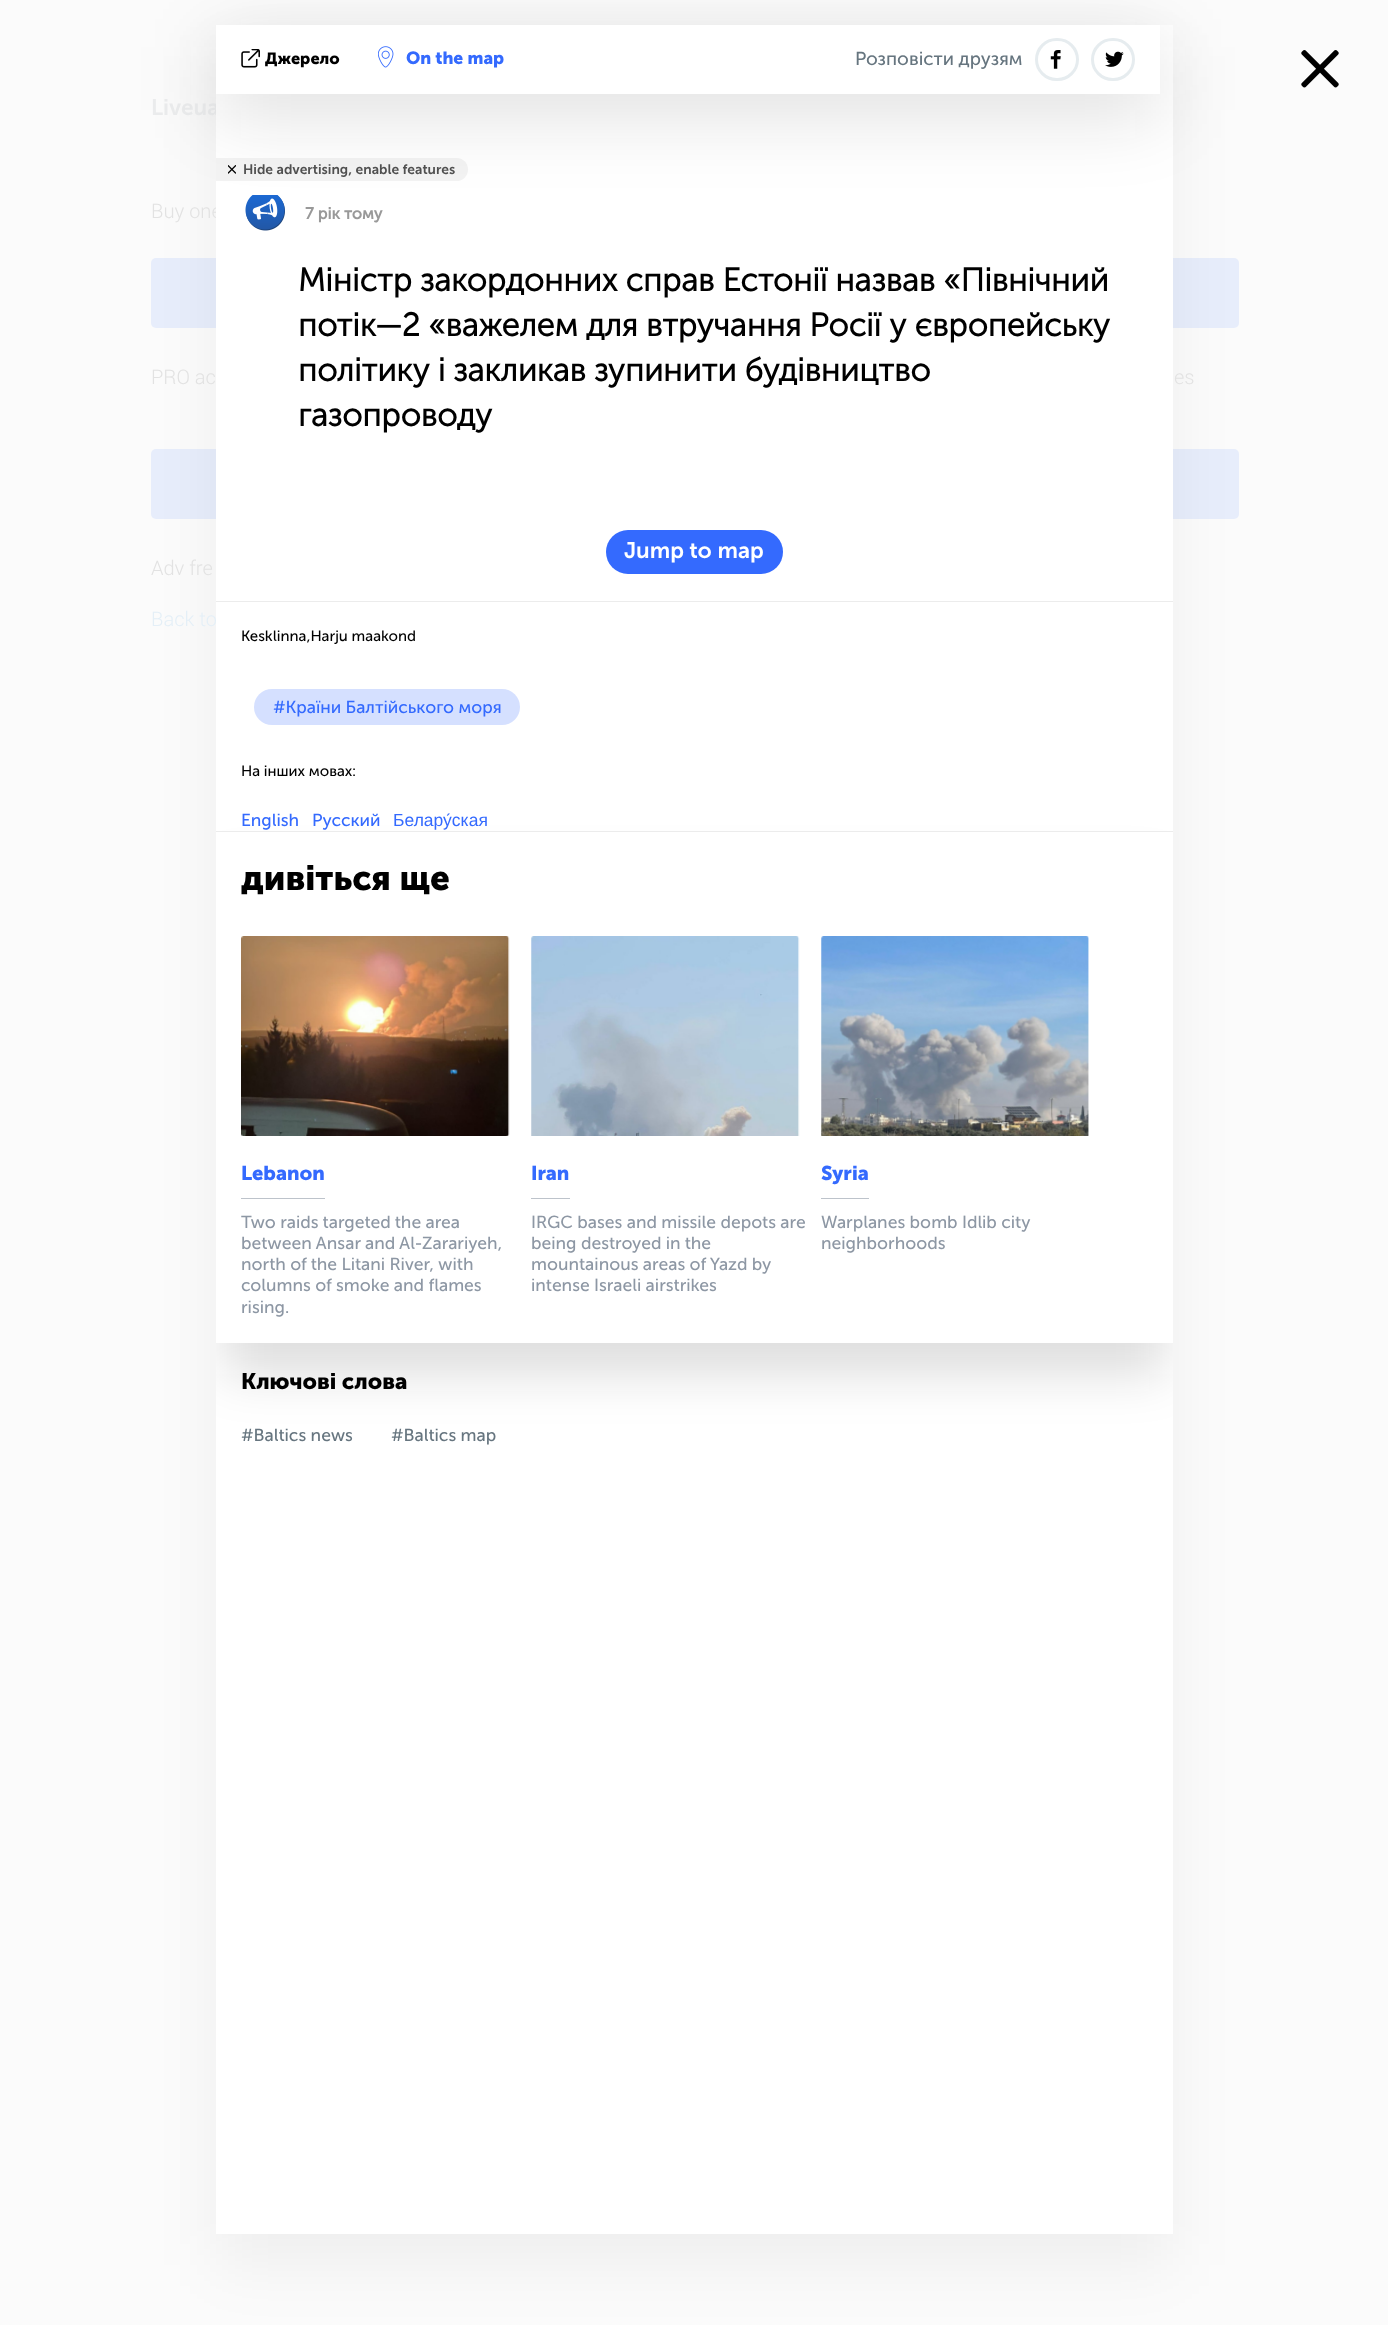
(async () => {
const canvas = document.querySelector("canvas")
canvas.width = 1388
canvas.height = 2325
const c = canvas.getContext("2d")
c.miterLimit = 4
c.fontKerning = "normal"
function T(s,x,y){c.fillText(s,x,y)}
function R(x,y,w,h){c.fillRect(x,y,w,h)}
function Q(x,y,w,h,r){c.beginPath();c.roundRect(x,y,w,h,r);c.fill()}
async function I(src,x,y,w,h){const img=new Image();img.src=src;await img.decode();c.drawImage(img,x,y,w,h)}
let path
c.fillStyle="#fbfbfb"
R(0,0,1388,2325)
c.fillStyle="#e7edfb"
Q(151,258,1088,70,5)
Q(151,449,1088,70,5)
c.fillStyle="#0000000d"
c.filter="blur(31px)"
c.beginPath()
c.rect(216,56,957,2209)
c.fill()
c.filter="none"
c.font="600 22.5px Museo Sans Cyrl"
c.fillStyle="#ebeced"
T("Liveua",151,115)
c.font="300 20px Roboto"
c.fillStyle="#e2e2e2"
T("Buy one",151,218)
c.fillStyle="#fff"
R(216,25,957,2209)
c.fillStyle="#f3f3f3"
c.beginPath()
c.roundRect(216,158,252,23,[0,11.5,11.5,0])
c.fill()
await I("6.png",228,165,8,9)
await I("7.png",245,195,40,36)
c.fillStyle="#100f0f24"
c.filter="blur(37.5px)"
c.beginPath()
c.rect(216,44,944,69)
c.fill()
c.filter="none"
c.fillStyle="#fff"
R(216,25,944,69)
await I("1.png",241,49,19,19)
c.font="bold 16.25px 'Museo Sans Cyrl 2'"
c.fillStyle="#000"
T("Джерело",265,64)
await I("2.png",378,46,16,22)
c.font="bold 17.5px 'Museo Sans Cyrl 2'"
c.fillStyle="#346afe"
T("On the map",406,64)
c.font="18.75px Museo Sans Cyrl"
c.fillStyle="#66757f"
T("Розповісти друзям",855,65)
await I("3.png",1050,50,11,19)
c.beginPath()
c.roundRect(1036.5,39.5,41,40,20)
c.strokeStyle="#e6ecef"
c.lineWidth=3
c.stroke()
await I("4.png",1105,51,19,16)
c.beginPath()
c.roundRect(1092.5,39.5,41,40,20)
c.stroke()
await I("5.png",1301,50,38,38)
c.font="600 13.75px Museo Sans Cyrl"
c.fillStyle="#505050"
T("Hide advertising, enable features",243,174)
c.font="bold 16.25px 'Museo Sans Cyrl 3'"
c.fillStyle="#999"
T("7 рік тому",305,219)
c.font="bold 32.5px Museo Sans Cyrl"
c.fillStyle="#000"
T("Міністр закордонних справ Естонії назвав «Північний",298,291)
T("потік—2 «важелем для втручання Росії у європейську",298,336)
T("політику і закликав зупинити будівництво",298,381)
T("газопроводу",298,426)
c.fillStyle="#ececec"
R(216,601,957,1)
c.fillStyle="#346afe"
Q(606,530,177,44,22)
c.font="600 22.5px Museo Sans Cyrl"
c.fillStyle="#fff"
T("Jump to map",624,558)
c.font="15px Museo Sans Cyrl"
c.fillStyle="#000"
T("Kesklinna,Harju maakond",241,641)
c.fillStyle="#d5e0ff"
Q(254,689,266,36,18)
c.font="17.5px Museo Sans Cyrl"
c.fillStyle="#346afe"
T("#Країни Балтійського моря",273,713)
c.font="15px Museo Sans Cyrl"
c.fillStyle="#000"
T("На інших мовах:",241,776)
c.save()
c.beginPath()
c.rect(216,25,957,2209)
c.clip()
path = new Path2D("M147 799h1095v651h-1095zm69 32h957v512h-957z")
c.clip(path,"evenodd")
c.fillStyle="#100f0f24"
c.filter="blur(25px)"
c.beginPath()
c.rect(223,875,943,499)
c.fill()
c.filter="none"
c.restore()
c.font="17.5px Museo Sans Cyrl"
c.fillStyle="#346afe"
T("English",241,826)
T("Русский",312,826)
c.font="17.5px Liberation Sans"
T("Белару́ская",393,826)
c.fillStyle="#ececec"
R(216,831,957,1)
c.font="bold 35px 'Museo Sans Cyrl 2'"
c.fillStyle="#000"
T("дивіться ще",241,890)
await I("8.png",241,936,269,200)
c.fillStyle="#bdc3cb"
R(241,1198,84,1)
c.font="bold 20px 'Museo Sans Cyrl 2'"
c.fillStyle="#346afe"
T("Lebanon",241,1180)
c.font="17.5px Museo Sans Cyrl"
c.fillStyle="#8d97a4"
T("Two raids targeted the area",241,1228)
T("between Ansar and Al-Zarariyeh,",241,1249)
T("north of the Litani River, with",241,1270)
T("columns of smoke and flames",241,1291)
T("rising.",241,1313)
await I("9.png",531,936,269,200)
c.fillStyle="#bdc3cb"
R(531,1198,39,1)
c.font="bold 20px 'Museo Sans Cyrl 2'"
c.fillStyle="#346afe"
T("Iran",531,1180)
c.font="17.5px Museo Sans Cyrl"
c.fillStyle="#8d97a4"
T("IRGC bases and missile depots are",531,1228)
T("being destroyed in the",531,1249)
T("mountainous areas of Yazd by",531,1270)
T("intense Israeli airstrikes",531,1291)
await I("10.png",821,936,268,200)
c.fillStyle="#bdc3cb"
R(821,1198,48,1)
c.font="bold 20px 'Museo Sans Cyrl 2'"
c.fillStyle="#346afe"
T("Syria",821,1180)
c.font="17.5px Museo Sans Cyrl"
c.fillStyle="#8d97a4"
T("Warplanes bomb Idlib city",821,1228)
T("neighborhoods",821,1249)
c.font="bold 22.5px 'Museo Sans Cyrl 2'"
c.fillStyle="#000"
T("Ключові слова",241,1389)
c.font="17.5px Museo Sans Cyrl"
c.fillStyle="#66757f"
T("#Baltics news",241,1441)
T("#Baltics map",391,1441)
c.font="300 20px Roboto"
c.fillStyle="#e2e2e2"
T("PRO ac",151,384)
T("es",1174,384)
T("Adv fre",151,575)
c.fillStyle="#e4eff7"
T("Back to",151,626)
})()
